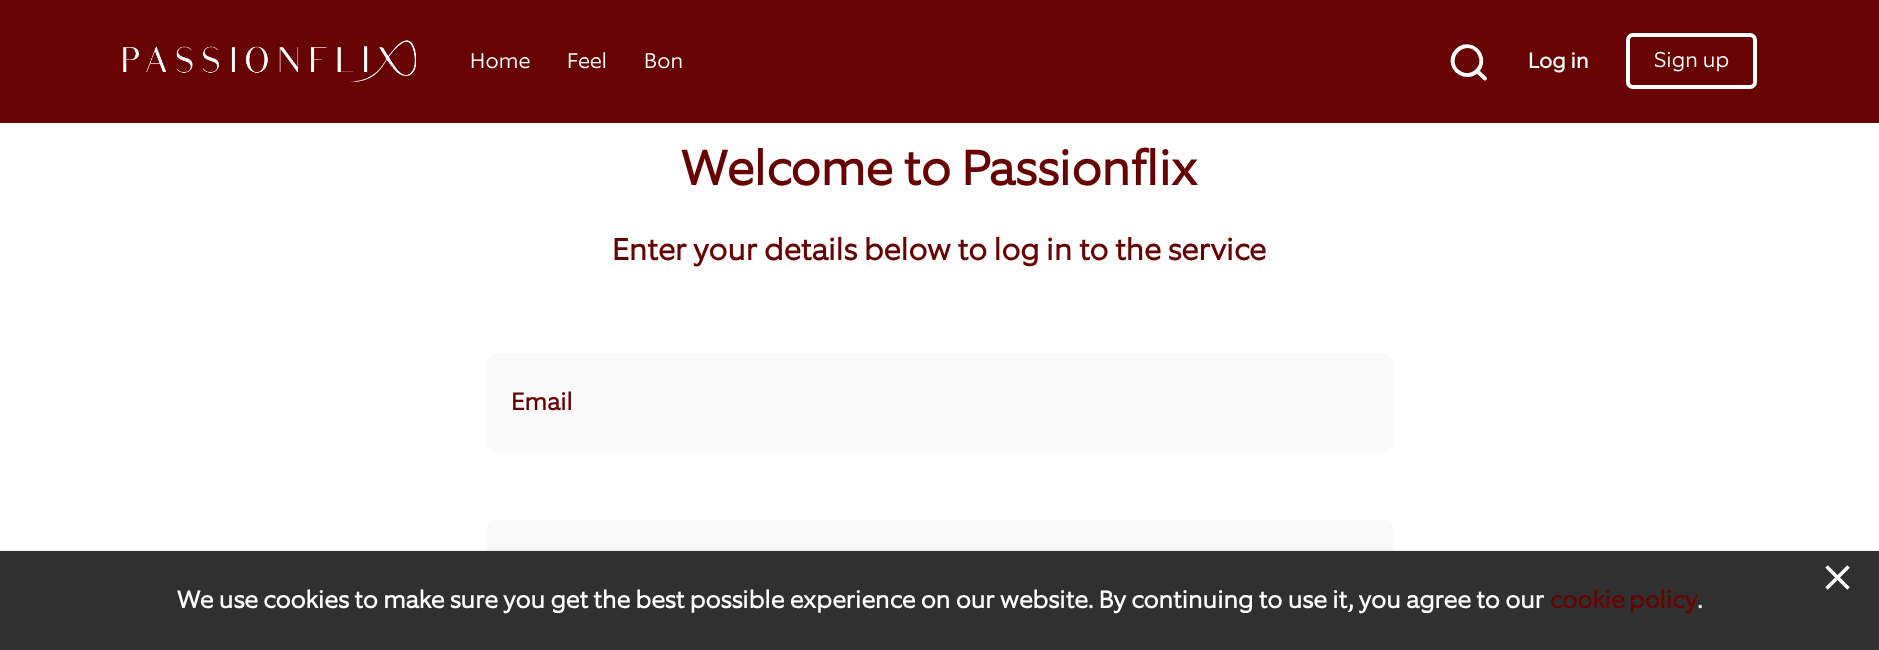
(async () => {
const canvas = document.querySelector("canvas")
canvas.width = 1879
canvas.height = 650
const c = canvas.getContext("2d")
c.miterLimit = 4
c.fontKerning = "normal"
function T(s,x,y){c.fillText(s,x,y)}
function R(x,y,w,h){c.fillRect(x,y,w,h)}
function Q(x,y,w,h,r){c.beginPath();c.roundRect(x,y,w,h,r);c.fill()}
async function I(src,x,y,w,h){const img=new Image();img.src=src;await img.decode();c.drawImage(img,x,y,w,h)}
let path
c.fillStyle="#fff"
R(0,0,1879,650)
c.fillStyle="#680303"
R(0,0,1879,123)
await I("1.png",123,40,293,42)
c.font="300 21.5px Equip"
c.fillStyle="#fff"
T("Home",470,68)
T("Feel",567,68)
T("Bon",644,68)
path = new Path2D("M1485 78.5l-8-7.5m0 0c10-10 1-27.5-13-24.5c-2.5 .5-5 2-7 4c-2 2-3.5 4.5-4 7c-3 14.5 14.5 23 24 13.5z")
c.strokeStyle="#fff"
c.lineWidth=4
c.lineCap="round"
c.lineJoin="round"
c.stroke(path)
c.font="bold 21.5px Equip"
T("Log in",1528,68)
c.beginPath()
c.roundRect(1628,35,127,52,5)
c.lineJoin="miter"
c.stroke()
c.font="300 21.5px Equip"
T("Sign up",1654,67)
c.font="bold 49px Equip"
c.fillStyle="#680303"
T("Welcome to Passionflix",681,185)
c.font="bold 30.6px Equip"
T("Enter your details below to log in to the service",612,260)
c.fillStyle="#f9f9f9"
Q(487,354,906,98,11)
c.font="bold 24.5px Equip"
c.fillStyle="#680303"
T("Email",511,410)
c.fillStyle="#f9f9f9"
Q(487,520,906,98,11)
c.fillStyle="#06000647"
c.filter="blur(2.5px)"
c.beginPath()
c.rect(0,553,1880,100)
c.fill()
c.filter="none"
c.fillStyle="#303030"
R(0,551,1879,99)
await I("2.png",1825,565,25,25)
c.fillStyle="#fff"
T("We use cookies to make sure you get the best possible experience on our website. By continuing to use it, you agree to our",177,608)
c.wordSpacing="-1px"
c.fillStyle="#680303"
T("cookie policy",1550,608)
c.wordSpacing="0px"
c.fillStyle="#fff"
T(".",1697,608)
})()
